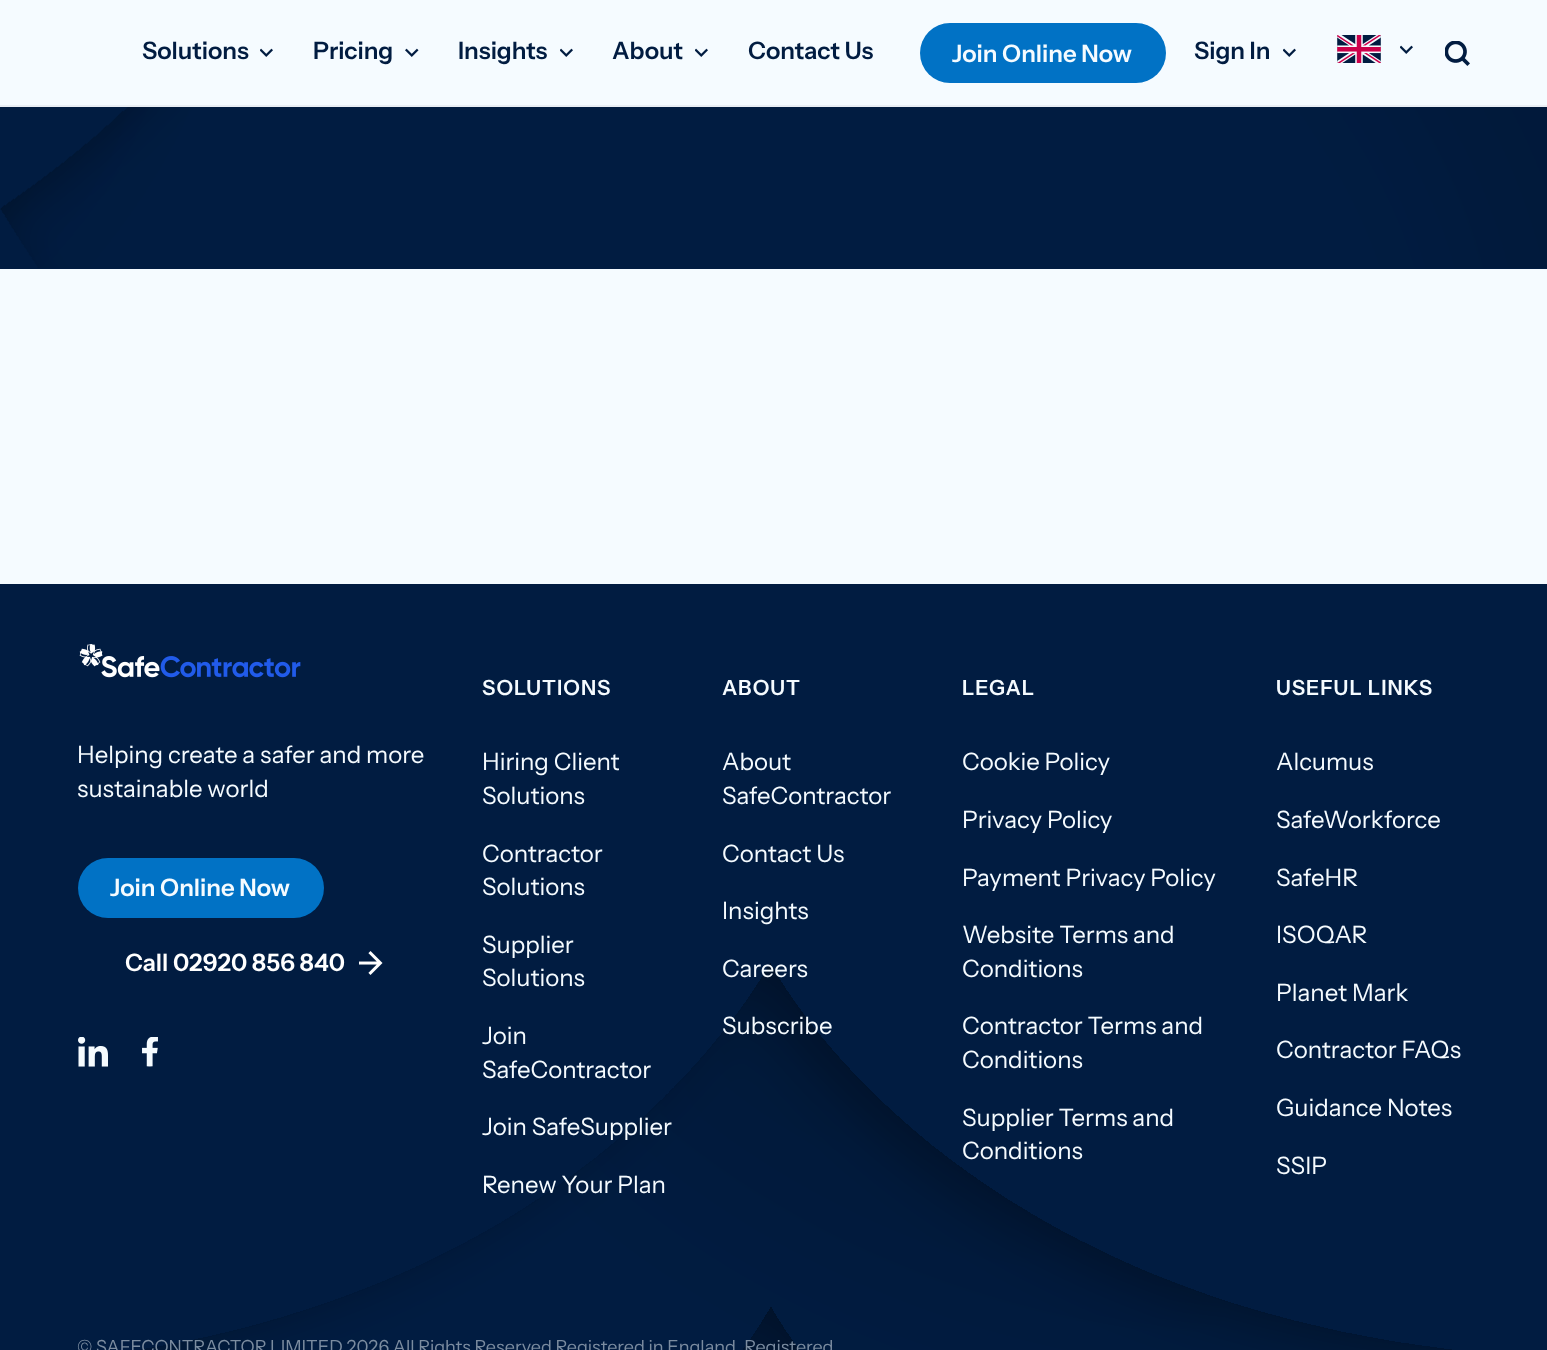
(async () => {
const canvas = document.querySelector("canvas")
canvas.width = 1547
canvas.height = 1350
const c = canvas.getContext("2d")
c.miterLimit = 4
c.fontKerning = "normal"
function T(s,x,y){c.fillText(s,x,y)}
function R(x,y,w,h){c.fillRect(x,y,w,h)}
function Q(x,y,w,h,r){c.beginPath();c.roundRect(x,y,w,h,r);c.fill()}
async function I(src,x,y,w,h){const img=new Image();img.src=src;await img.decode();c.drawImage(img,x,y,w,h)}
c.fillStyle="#f5fbff"
R(0,0,1547,1350)
c.fillStyle="#e9eef4"
R(0,105,1547,2)
c.font="600 24px Instrument Sans"
c.fillStyle="#011c41"
T("Solutions",142,59)
await I("1.png",260,48,13,9)
T("Pricing",313,59)
await I("2.png",405,48,14,9)
T("Insights",458,59)
await I("1.png",560,48,13,9)
T("About",612,59)
await I("1.png",695,48,13,9)
T("Contact Us",748,59)
c.fillStyle="#0172c5"
Q(920,23,246,60,30)
c.fillStyle="#f5fbff"
T("Join Online Now",952,62)
c.fillStyle="#011c41"
T("Sign In",1194,59)
await I("1.png",1283,48,13,9)
await I("3.png",1337,35,44,28)
await I("1.png",1400,45,13,9)
await I("4.png",1445,41,25,25)
R(0,268,1547,1)
await I("5.png",0,107,1547,161)
R(0,584,1547,766)
await I("6.png",141,963,1311,387)
await I("7.png",79,644,222,34)
c.font="24px Instrument Sans"
c.fillStyle="#f5fbff"
T("Helping create a safer and more",77,763)
T("sustainable world",77,797)
c.fillStyle="#0172c5"
Q(78,858,246,60,30)
c.font="600 24px Instrument Sans"
c.fillStyle="#f5fbff"
T("Join Online Now",110,896)
c.fillStyle="#fff"
T("Call 02920 856 840",125,971)
await I("8.png",359,951,24,24)
await I("9.png",78,1037,30,30)
await I("10.png",142,1037,16,30)
c.letterSpacing="1px"
c.font="600 21px Instrument Sans"
c.fillStyle="#f5fbff"
T("SOLUTIONS",482,695)
c.letterSpacing="0px"
c.font="24px Instrument Sans"
T("Hiring Client",482,770)
T("Solutions",482,804)
T("Contractor",482,862)
T("Solutions",482,895)
T("Supplier",482,953)
T("Solutions",482,986)
T("Join",482,1044)
T("SafeContractor",482,1078)
T("Join SafeSupplier",482,1135)
T("Renew Your Plan",482,1193)
c.letterSpacing="1px"
c.font="600 21px Instrument Sans"
T("ABOUT",722,695)
c.letterSpacing="0px"
c.font="24px Instrument Sans"
T("About",722,770)
T("SafeContractor",722,804)
T("Contact Us",722,862)
T("Insights",722,919)
T("Careers",722,977)
T("Subscribe",722,1034)
c.letterSpacing="1px"
c.font="600 21px Instrument Sans"
T("LEGAL",962,695)
c.letterSpacing="0px"
c.font="24px Instrument Sans"
T("Cookie Policy",962,770)
T("Privacy Policy",962,828)
T("Payment Privacy Policy",962,886)
T("Website Terms and",962,943)
T("Conditions",962,977)
T("Contractor Terms and",962,1034)
T("Conditions",962,1068)
T("Supplier Terms and",962,1126)
T("Conditions",962,1159)
c.letterSpacing="1px"
c.font="600 21px Instrument Sans"
T("USEFUL LINKS",1276,695)
c.letterSpacing="0px"
c.font="24px Instrument Sans"
T("Alcumus",1276,770)
T("SafeWorkforce",1276,828)
T("SafeHR",1276,886)
T("ISOQAR",1276,943)
T("Planet Mark",1276,1001)
T("Contractor FAQs",1276,1058)
T("Guidance Notes",1276,1116)
T("SSIP",1276,1174)
c.font="18px Instrument Sans"
c.fillStyle="#7b8ca0"
T("© SAFECONTRACTOR LIMITED 2026 All Rights Reserved Registered in England. Registered",77,1353)
})()
